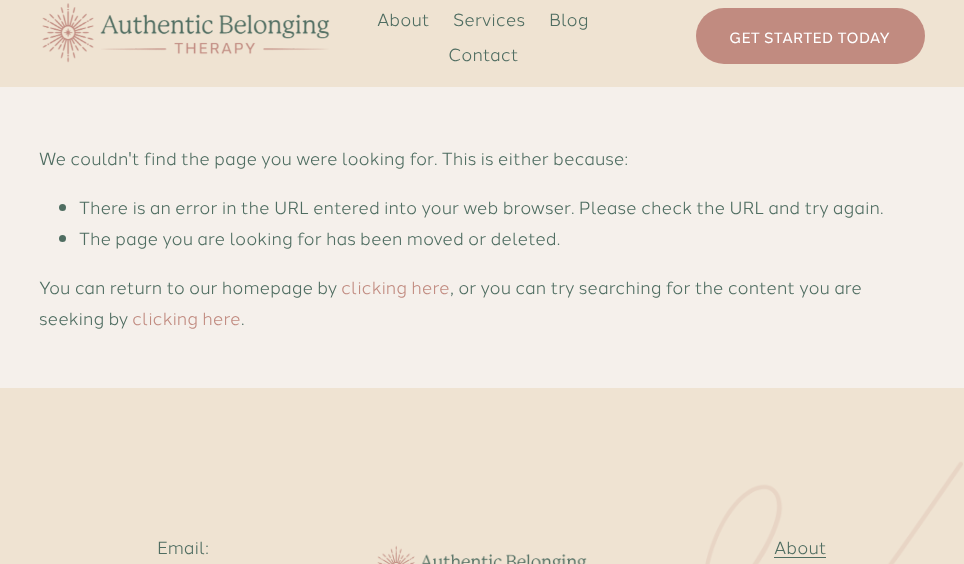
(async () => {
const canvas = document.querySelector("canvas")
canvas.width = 964
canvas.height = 564
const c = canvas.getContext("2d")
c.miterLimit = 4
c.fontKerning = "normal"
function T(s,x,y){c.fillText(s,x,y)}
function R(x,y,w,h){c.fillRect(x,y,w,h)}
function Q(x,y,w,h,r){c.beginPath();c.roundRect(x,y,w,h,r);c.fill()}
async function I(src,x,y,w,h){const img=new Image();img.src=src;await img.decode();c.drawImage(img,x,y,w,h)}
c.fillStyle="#f5f0eb"
R(0,0,964,564)
c.fillStyle="#efe3d2"
R(0,0,964,87)
await I("1.png",42,3,288,60)
c.font="17.45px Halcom"
c.fillStyle="#4f6d61"
T("About",377,26)
T("Services",453,26)
T("Blog",549,26)
T("Contact",448,61)
c.fillStyle="#c18b80"
Q(696,8,229,56,28)
c.letterSpacing="0.25px"
c.font="14.75px 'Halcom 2'"
c.fillStyle="#fff"
T("GET STARTED TODAY",729,43)
c.letterSpacing="0px"
c.font="17.45px Halcom"
c.fillStyle="#4f6d61"
T("We couldn't find the page you were looking for. This is either because:",39,165)
c.beginPath()
c.arc(62.5,207.5,3.5,0,7)
c.fill()
T("There is an error in the URL entered into your web browser. Please check the URL and try again.",79,214)
c.beginPath()
c.arc(62.5,238.5,3.5,0,7)
c.fill()
T("The page you are looking for has been moved or deleted.",79,245)
T("You can return to our homepage by",39,294)
c.fillStyle="#c18b80"
T("clicking here",341,294)
c.fillStyle="#4f6d61"
T(", or you can try searching for the content you are",450,294)
T("seeking by",39,325)
c.fillStyle="#c18b80"
T("clicking here",132,325)
c.fillStyle="#4f6d61"
T(".",241,325)
c.fillStyle="#efe3d2"
R(0,388,964,176)
await I("2.png",705,461,259,103)
c.fillStyle="#4f6d61"
T("Email:",157,554)
await I("3.png",377,545,210,19)
T("About",774,554)
R(774,557,52,1)
})()
